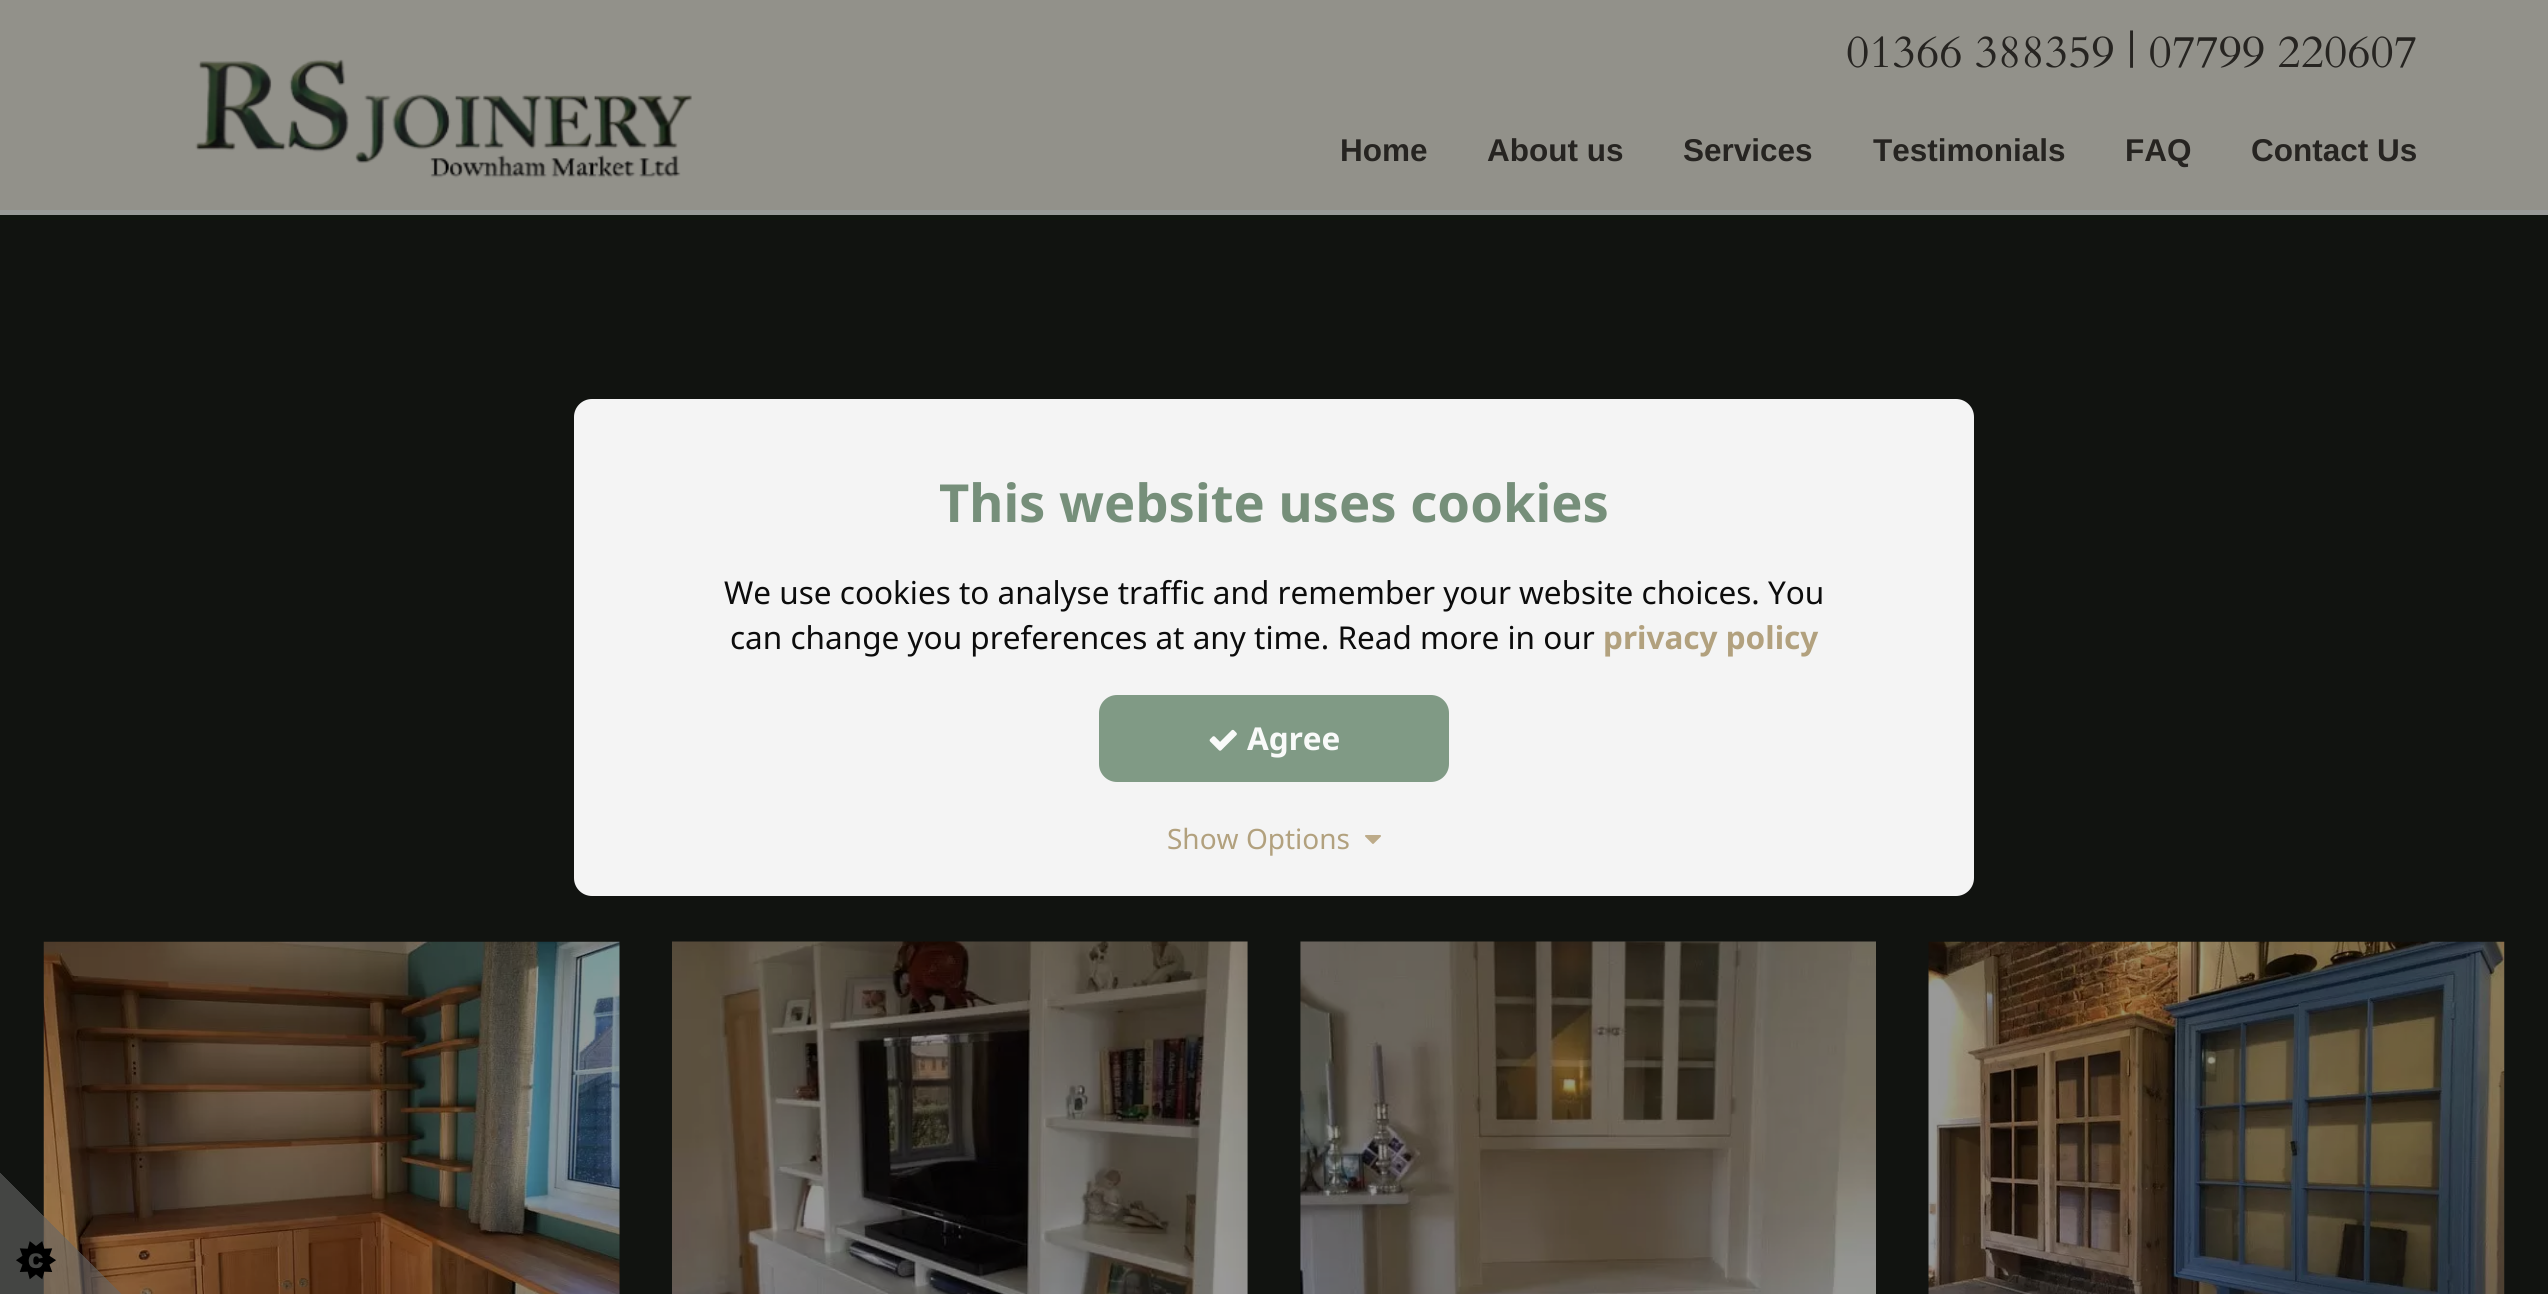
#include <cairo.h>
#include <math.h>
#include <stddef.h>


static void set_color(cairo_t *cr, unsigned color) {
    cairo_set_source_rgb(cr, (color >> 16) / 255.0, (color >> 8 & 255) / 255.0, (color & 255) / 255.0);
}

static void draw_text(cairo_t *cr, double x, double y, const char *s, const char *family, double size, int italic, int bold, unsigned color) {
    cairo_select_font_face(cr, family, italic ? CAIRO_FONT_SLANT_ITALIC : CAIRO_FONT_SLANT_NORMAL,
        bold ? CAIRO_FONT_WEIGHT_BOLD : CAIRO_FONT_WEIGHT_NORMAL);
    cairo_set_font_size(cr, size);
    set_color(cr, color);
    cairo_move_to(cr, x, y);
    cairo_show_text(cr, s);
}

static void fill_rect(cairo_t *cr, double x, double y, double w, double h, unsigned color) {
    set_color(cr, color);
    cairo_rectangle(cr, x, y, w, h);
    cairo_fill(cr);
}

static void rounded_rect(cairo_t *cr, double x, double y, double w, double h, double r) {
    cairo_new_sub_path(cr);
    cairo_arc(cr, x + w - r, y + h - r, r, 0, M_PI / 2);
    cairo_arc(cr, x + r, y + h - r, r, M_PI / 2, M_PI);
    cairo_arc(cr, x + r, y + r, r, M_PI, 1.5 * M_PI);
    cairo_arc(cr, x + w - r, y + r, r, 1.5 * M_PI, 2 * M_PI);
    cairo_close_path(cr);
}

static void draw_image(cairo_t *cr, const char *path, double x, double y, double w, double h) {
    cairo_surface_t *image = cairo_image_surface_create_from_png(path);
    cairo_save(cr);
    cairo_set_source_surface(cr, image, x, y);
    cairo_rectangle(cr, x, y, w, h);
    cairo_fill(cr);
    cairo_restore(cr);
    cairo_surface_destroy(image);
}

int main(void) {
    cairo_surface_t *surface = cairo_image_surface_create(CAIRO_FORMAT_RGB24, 2548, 1294);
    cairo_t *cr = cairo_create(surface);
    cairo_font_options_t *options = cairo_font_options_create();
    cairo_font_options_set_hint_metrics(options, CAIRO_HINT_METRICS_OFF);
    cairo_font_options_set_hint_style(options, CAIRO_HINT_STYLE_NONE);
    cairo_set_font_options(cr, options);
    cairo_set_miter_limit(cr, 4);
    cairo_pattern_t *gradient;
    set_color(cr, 0x999999);
    cairo_paint(cr);
    fill_rect(cr, 0, 0, 2548, 210, 0x92918A);
    draw_image(cr, "assets/img1.png", 195, 59, 497, 119);
    draw_text(cr, 1846, 67, "01366 388359 | 07799 220607", "Cardo", 45.5, 0, 0, 0x262421);
    draw_text(cr, 1340, 161, "Home", "Liberation Sans", 31.5, 0, 1, 0x262421);
    draw_text(cr, 1487, 161, "About us", "Liberation Sans", 31.5, 0, 1, 0x262421);
    draw_text(cr, 1683, 161, "Services", "Liberation Sans", 31.5, 0, 1, 0x262421);
    draw_text(cr, 1873, 161, "Testimonials", "Liberation Sans", 31.5, 0, 1, 0x262421);
    draw_text(cr, 2125, 161, "FAQ", "Liberation Sans", 31.5, 0, 1, 0x262421);
    draw_text(cr, 2251, 161, "Contact Us", "Liberation Sans", 31.5, 0, 1, 0x262421);
    fill_rect(cr, 0, 215, 2548, 1079, 0x111310);
    draw_image(cr, "assets/img2.png", 43, 941, 577, 353);
    draw_image(cr, "assets/img3.png", 672, 941, 576, 353);
    draw_image(cr, "assets/img4.png", 1300, 941, 576, 353);
    draw_image(cr, "assets/img5.png", 1928, 941, 577, 353);
    cairo_set_source_rgba(cr, 1, 1, 1, 0.95);
    rounded_rect(cr, 574, 399, 1400, 497, 18);
    cairo_fill(cr);
    draw_text(cr, 939, 522, "This website uses cookies", "Noto Sans", 52.5, 0, 1, 0x768F7A);
    draw_text(cr, 724, 604, "We use cookies to analyse traffic and remember your website choices. You", "Noto Sans", 31.5, 0, 0, 0x0C0C0C);
    draw_text(cr, 730, 649, "can change you preferences at any time. Read more in our", "Noto Sans", 31.5, 0, 0, 0x0C0C0C);
    draw_text(cr, 1603, 649, "privacy policy", "Noto Sans", 31.5, 0, 1, 0xB2A17E);
    cairo_set_source_rgba(cr, 0.482, 0.588, 0.502, 0.95);
    rounded_rect(cr, 1099, 695, 350, 87, 18);
    cairo_fill(cr);
    draw_image(cr, "assets/img6.png", 1209, 729, 28, 22);
    draw_text(cr, 1247, 750, "Agree", "Noto Sans", 31.5, 0, 1, 0xF9FAF9);
    draw_text(cr, 1167, 849, "Show Options", "Noto Sans", 28, 0, 0, 0xB2A17E);
    draw_image(cr, "assets/img7.png", 1365, 835, 16, 9);
    gradient = cairo_pattern_create_linear(123, 1173, 0, 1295);
    cairo_pattern_add_color_stop_rgba(gradient, 0.5, 0.4, 0.4, 0.4, 0);
    cairo_pattern_add_color_stop_rgba(gradient, 0.5, 0.4, 0.4, 0.4, 0.6);
    cairo_set_source(cr, gradient);
    cairo_pattern_destroy(gradient);
    cairo_rectangle(cr, 0, 1173, 121, 121);
    cairo_fill(cr);
    draw_image(cr, "assets/img8.png", 16, 1241, 40, 39);
    cairo_surface_write_to_png(surface, "output.png");
    cairo_font_options_destroy(options);
    cairo_destroy(cr);
    cairo_surface_destroy(surface);
    return 0;
}
